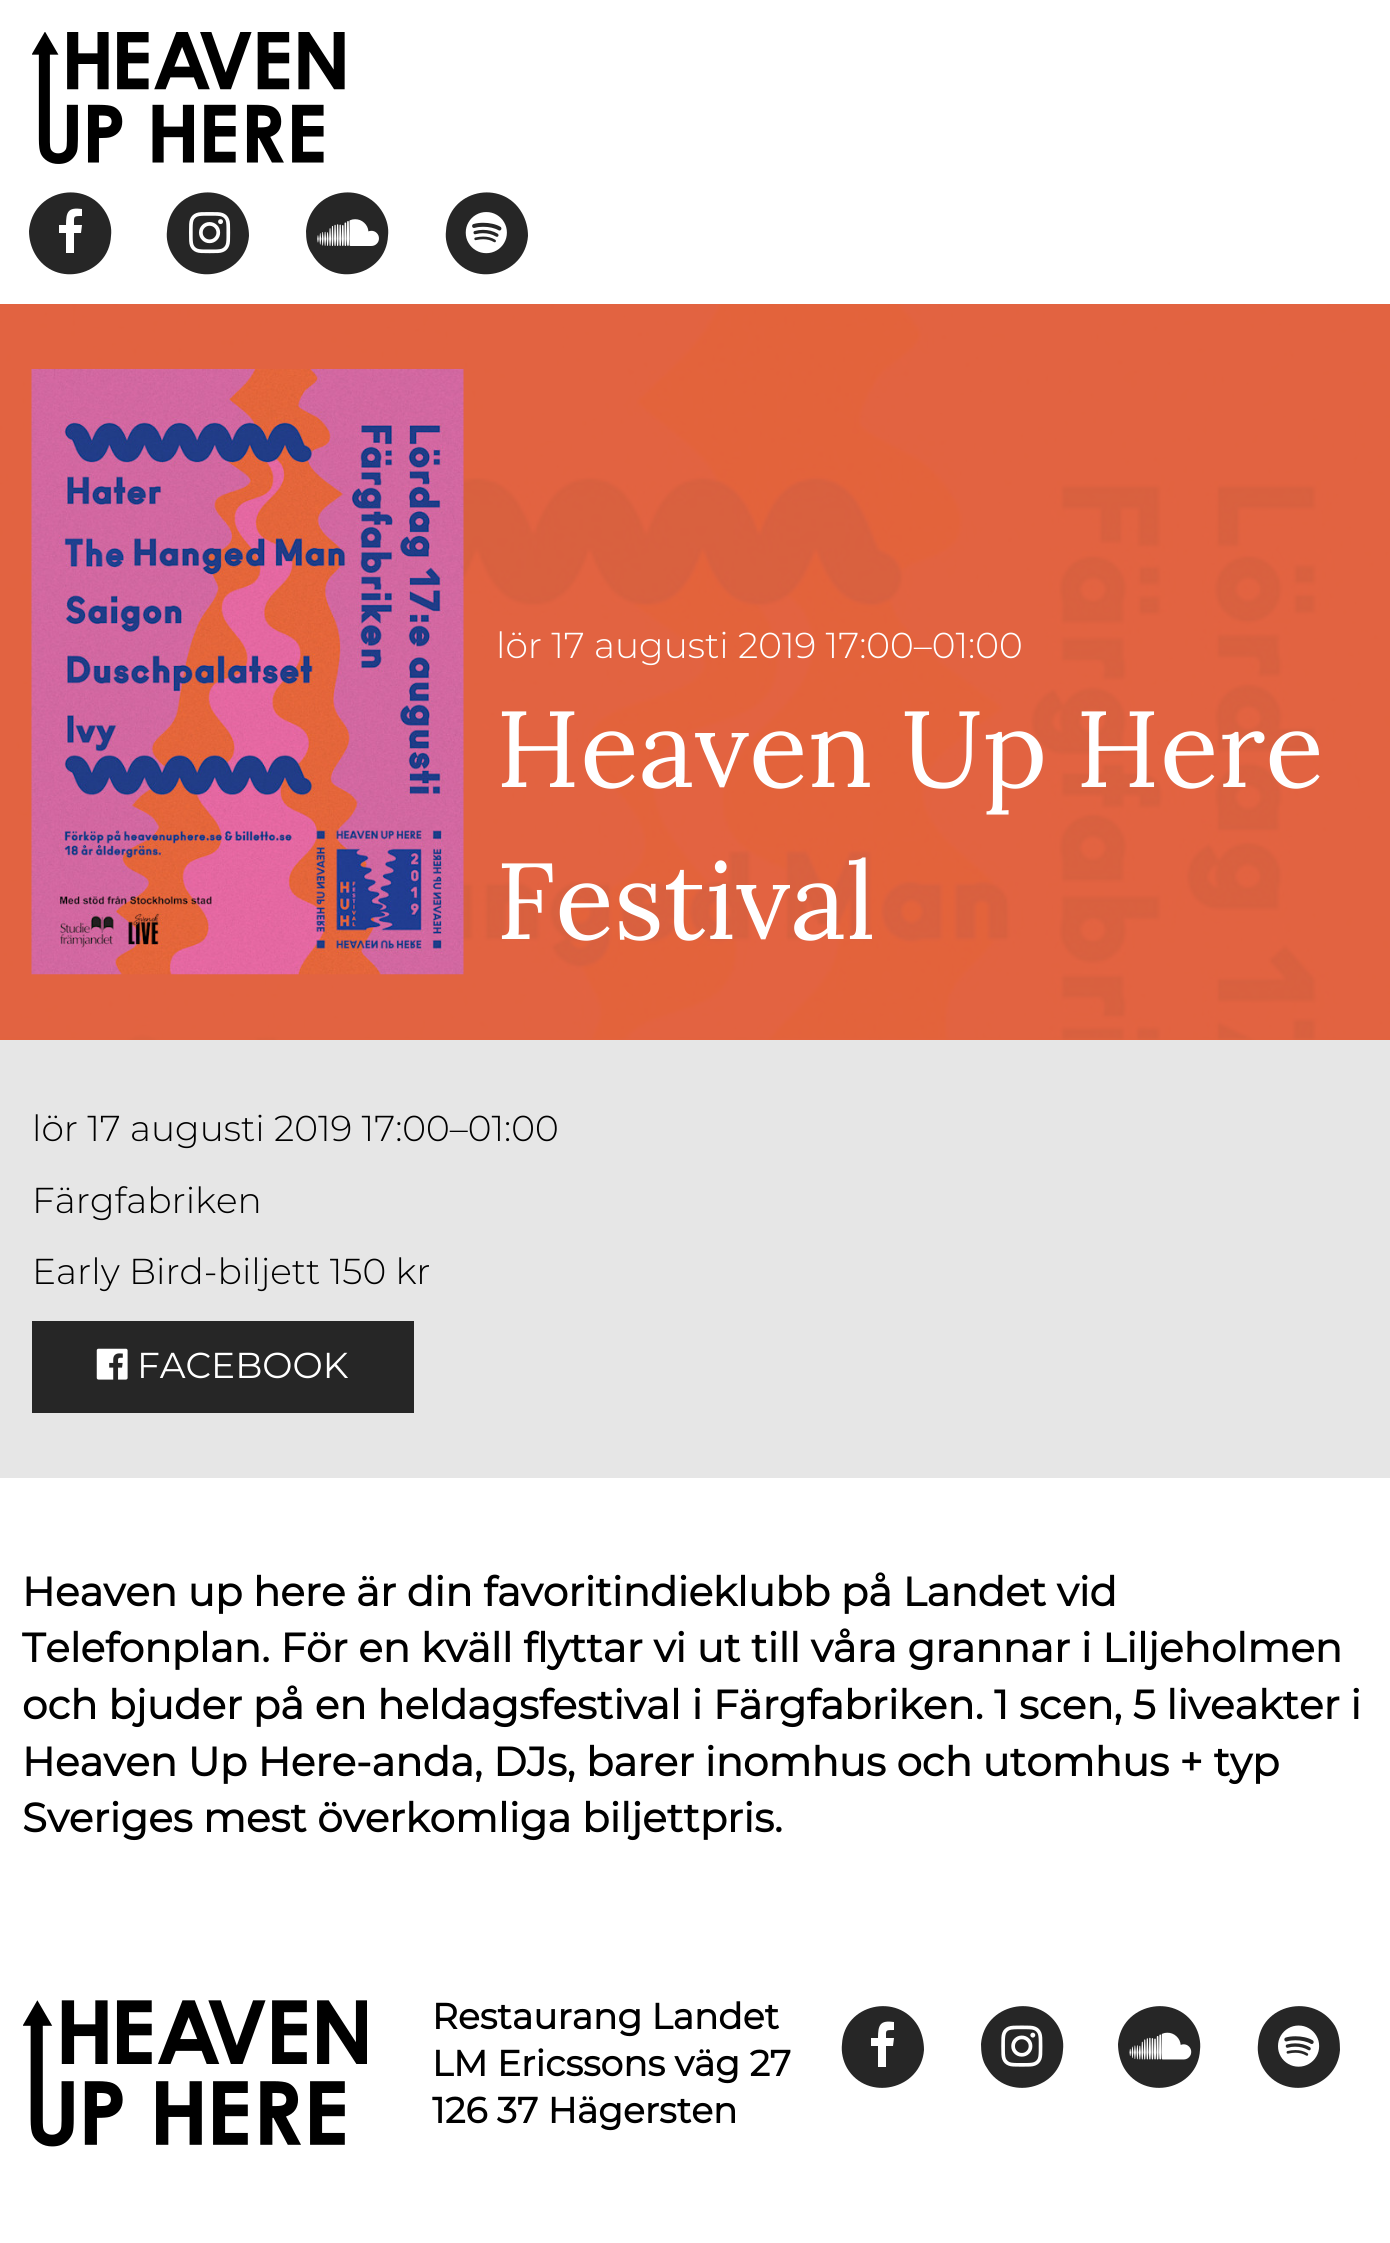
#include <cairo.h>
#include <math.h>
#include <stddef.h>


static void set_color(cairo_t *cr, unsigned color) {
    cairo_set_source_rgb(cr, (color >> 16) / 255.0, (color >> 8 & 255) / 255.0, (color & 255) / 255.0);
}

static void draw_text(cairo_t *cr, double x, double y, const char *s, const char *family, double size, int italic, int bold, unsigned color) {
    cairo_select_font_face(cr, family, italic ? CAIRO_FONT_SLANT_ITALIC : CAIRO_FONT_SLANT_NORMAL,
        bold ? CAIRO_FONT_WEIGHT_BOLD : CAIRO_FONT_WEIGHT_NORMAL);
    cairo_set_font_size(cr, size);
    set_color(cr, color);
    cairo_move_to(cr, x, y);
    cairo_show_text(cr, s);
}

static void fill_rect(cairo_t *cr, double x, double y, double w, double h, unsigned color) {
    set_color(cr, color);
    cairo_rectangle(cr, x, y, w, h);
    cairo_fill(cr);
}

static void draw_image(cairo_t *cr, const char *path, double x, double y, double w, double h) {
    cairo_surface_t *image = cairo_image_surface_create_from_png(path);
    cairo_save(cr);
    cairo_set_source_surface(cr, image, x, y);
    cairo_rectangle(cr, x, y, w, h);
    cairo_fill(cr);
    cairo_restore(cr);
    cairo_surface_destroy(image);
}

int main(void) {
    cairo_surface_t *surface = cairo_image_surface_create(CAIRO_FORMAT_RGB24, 1390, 2243);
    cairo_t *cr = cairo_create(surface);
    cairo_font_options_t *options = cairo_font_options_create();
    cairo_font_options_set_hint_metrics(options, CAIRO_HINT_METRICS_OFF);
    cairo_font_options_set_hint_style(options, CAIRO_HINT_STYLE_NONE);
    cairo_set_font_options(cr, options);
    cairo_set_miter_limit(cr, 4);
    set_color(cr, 0xFFFFFF);
    cairo_paint(cr);
    draw_image(cr, "assets/img1.png", 32, 32, 313, 132);
    set_color(cr, 0x262626);
    cairo_new_path(cr);
    cairo_move_to(cr, 106, 213);
    cairo_curve_to(cr, 110, 220, 112, 228, 111, 236);
    cairo_curve_to(cr, 109, 276, 55, 289, 35, 254);
    cairo_curve_to(cr, 31, 247, 29, 239, 29, 231);
    cairo_curve_to(cr, 32, 190, 86, 178, 106, 213);
    cairo_close_path(cr);
    cairo_fill(cr);
    set_color(cr, 0xFFFFFF);
    cairo_new_path(cr);
    cairo_move_to(cr, 82, 209);
    cairo_line_to(cr, 82, 216);
    cairo_curve_to(cr, 73, 216, 74, 216, 74, 225);
    cairo_line_to(cr, 82, 225);
    cairo_line_to(cr, 81, 233);
    cairo_line_to(cr, 74, 233);
    cairo_line_to(cr, 74, 253);
    cairo_line_to(cr, 66, 253);
    cairo_line_to(cr, 66, 233);
    cairo_line_to(cr, 59, 233);
    cairo_line_to(cr, 59, 225);
    cairo_line_to(cr, 66, 225);
    cairo_curve_to(cr, 66, 212, 68, 207, 82, 209);
    cairo_close_path(cr);
    cairo_fill(cr);
    set_color(cr, 0x262626);
    cairo_new_path(cr);
    cairo_move_to(cr, 243, 213);
    cairo_curve_to(cr, 247, 220, 249, 228, 249, 236);
    cairo_curve_to(cr, 246, 276, 192, 289, 172, 254);
    cairo_curve_to(cr, 168, 247, 166, 239, 167, 231);
    cairo_curve_to(cr, 169, 190, 223, 178, 243, 213);
    cairo_close_path(cr);
    cairo_fill(cr);
    draw_image(cr, "assets/img2.png", 189, 212, 42, 42);
    cairo_new_path(cr);
    cairo_move_to(cr, 383, 213);
    cairo_curve_to(cr, 387, 220, 389, 228, 388, 236);
    cairo_curve_to(cr, 386, 276, 332, 289, 312, 254);
    cairo_curve_to(cr, 307, 247, 306, 239, 306, 231);
    cairo_curve_to(cr, 309, 190, 363, 178, 383, 213);
    cairo_close_path(cr);
    cairo_fill(cr);
    draw_image(cr, "assets/img3.png", 317, 219, 62, 27);
    cairo_new_path(cr);
    cairo_move_to(cr, 522, 213);
    cairo_curve_to(cr, 526, 220, 528, 228, 528, 236);
    cairo_curve_to(cr, 525, 276, 471, 289, 451, 254);
    cairo_curve_to(cr, 447, 247, 445, 239, 446, 231);
    cairo_curve_to(cr, 448, 190, 502, 178, 522, 213);
    cairo_close_path(cr);
    cairo_fill(cr);
    draw_image(cr, "assets/img4.png", 465, 212, 42, 42);
    fill_rect(cr, 0, 304, 1390, 736, 0xE3633C);
    draw_image(cr, "assets/img5.png", 0, 304, 1390, 736);
    draw_image(cr, "assets/img6.png", 31, 369, 433, 606);
    draw_text(cr, 496, 658, "lör 17 augusti 2019 17:00–01:00", "Montserrat Light", 36, 0, 0, 0xFFFFFF);
    draw_text(cr, 496, 787, "Heaven Up Here", "Lora", 108, 0, 0, 0xFFFFFF);
    draw_text(cr, 496, 939, "Festival", "Lora", 108, 0, 0, 0xFFFFFF);
    fill_rect(cr, 0, 1040, 1390, 438, 0xE6E6E6);
    draw_text(cr, 32, 1141, "lör 17 augusti 2019 17:00–01:00", "Montserrat Light", 36, 0, 0, 0x000000);
    draw_text(cr, 32, 1213, "Färgfabriken", "Montserrat Light", 36, 0, 0, 0x000000);
    draw_text(cr, 32, 1284, "Early Bird-biljett 150 kr", "Montserrat Light", 36, 0, 0, 0x000000);
    fill_rect(cr, 32, 1321, 382, 92, 0x262626);
    draw_image(cr, "assets/img7.png", 96, 1348, 32, 32);
    draw_text(cr, 137, 1378, "FACEBOOK", "Montserrat", 36, 0, 0, 0xFFFFFF);
    draw_text(cr, 22, 1606, "Heaven up here är din favoritindieklubb på Landet vid", "Montserrat", 40.5, 0, 1, 0x000000);
    draw_text(cr, 22, 1662, "Telefonplan. För en kväll flyttar vi ut till våra grannar i Liljeholmen", "Montserrat", 40.5, 0, 1, 0x000000);
    draw_text(cr, 22, 1719, "och bjuder på en heldagsfestival i Färgfabriken. 1 scen, 5 liveakter i", "Montserrat", 40.5, 0, 1, 0x000000);
    draw_text(cr, 22, 1776, "Heaven Up Here-anda, DJs, barer inomhus och utomhus + typ", "Montserrat", 40.5, 0, 1, 0x000000);
    draw_text(cr, 22, 1832, "Sveriges mest överkomliga biljettpris.", "Montserrat", 40.5, 0, 1, 0x000000);
    draw_image(cr, "assets/img8.png", 23, 2000, 344, 147);
    draw_text(cr, 432, 2029, "Restaurang Landet", "Montserrat", 36, 0, 1, 0x000000);
    draw_text(cr, 432, 2076, "LM Ericssons väg 27", "Montserrat", 36, 0, 1, 0x000000);
    draw_text(cr, 432, 2123, "126 37 Hägersten", "Montserrat", 36, 0, 1, 0x000000);
    set_color(cr, 0x262626);
    cairo_new_path(cr);
    cairo_move_to(cr, 918, 2026);
    cairo_curve_to(cr, 922, 2033, 924, 2042, 924, 2050);
    cairo_curve_to(cr, 921, 2090, 867, 2102, 847, 2068);
    cairo_curve_to(cr, 843, 2061, 841, 2052, 842, 2044);
    cairo_curve_to(cr, 844, 2004, 898, 1992, 918, 2026);
    cairo_close_path(cr);
    cairo_fill(cr);
    set_color(cr, 0xFFFFFF);
    cairo_new_path(cr);
    cairo_move_to(cr, 894, 2022);
    cairo_line_to(cr, 894, 2030);
    cairo_curve_to(cr, 885, 2030, 886, 2030, 886, 2038);
    cairo_line_to(cr, 894, 2038);
    cairo_line_to(cr, 893, 2046);
    cairo_line_to(cr, 886, 2046);
    cairo_line_to(cr, 886, 2067);
    cairo_line_to(cr, 878, 2067);
    cairo_line_to(cr, 878, 2046);
    cairo_line_to(cr, 871, 2046);
    cairo_line_to(cr, 871, 2038);
    cairo_line_to(cr, 878, 2038);
    cairo_curve_to(cr, 878, 2025, 880, 2020, 894, 2022);
    cairo_close_path(cr);
    cairo_fill(cr);
    set_color(cr, 0x262626);
    cairo_new_path(cr);
    cairo_move_to(cr, 1058, 2026);
    cairo_curve_to(cr, 1062, 2033, 1064, 2042, 1063, 2050);
    cairo_curve_to(cr, 1061, 2090, 1007, 2102, 987, 2068);
    cairo_curve_to(cr, 982, 2061, 981, 2052, 981, 2044);
    cairo_curve_to(cr, 984, 2004, 1038, 1992, 1058, 2026);
    cairo_close_path(cr);
    cairo_fill(cr);
    draw_image(cr, "assets/img9.png", 1001, 2025, 42, 42);
    cairo_new_path(cr);
    cairo_move_to(cr, 1195, 2026);
    cairo_curve_to(cr, 1199, 2033, 1201, 2042, 1200, 2050);
    cairo_curve_to(cr, 1198, 2090, 1144, 2102, 1124, 2068);
    cairo_curve_to(cr, 1120, 2061, 1118, 2052, 1118, 2044);
    cairo_curve_to(cr, 1121, 2004, 1175, 1992, 1195, 2026);
    cairo_close_path(cr);
    cairo_fill(cr);
    draw_image(cr, "assets/img10.png", 1129, 2032, 63, 28);
    cairo_new_path(cr);
    cairo_move_to(cr, 1335, 2026);
    cairo_curve_to(cr, 1339, 2033, 1340, 2042, 1340, 2050);
    cairo_curve_to(cr, 1337, 2090, 1283, 2102, 1263, 2068);
    cairo_curve_to(cr, 1259, 2061, 1257, 2052, 1258, 2044);
    cairo_curve_to(cr, 1260, 2004, 1314, 1992, 1335, 2026);
    cairo_close_path(cr);
    cairo_fill(cr);
    draw_image(cr, "assets/img11.png", 1278, 2025, 42, 42);
    cairo_surface_write_to_png(surface, "output.png");
    cairo_font_options_destroy(options);
    cairo_destroy(cr);
    cairo_surface_destroy(surface);
    return 0;
}
